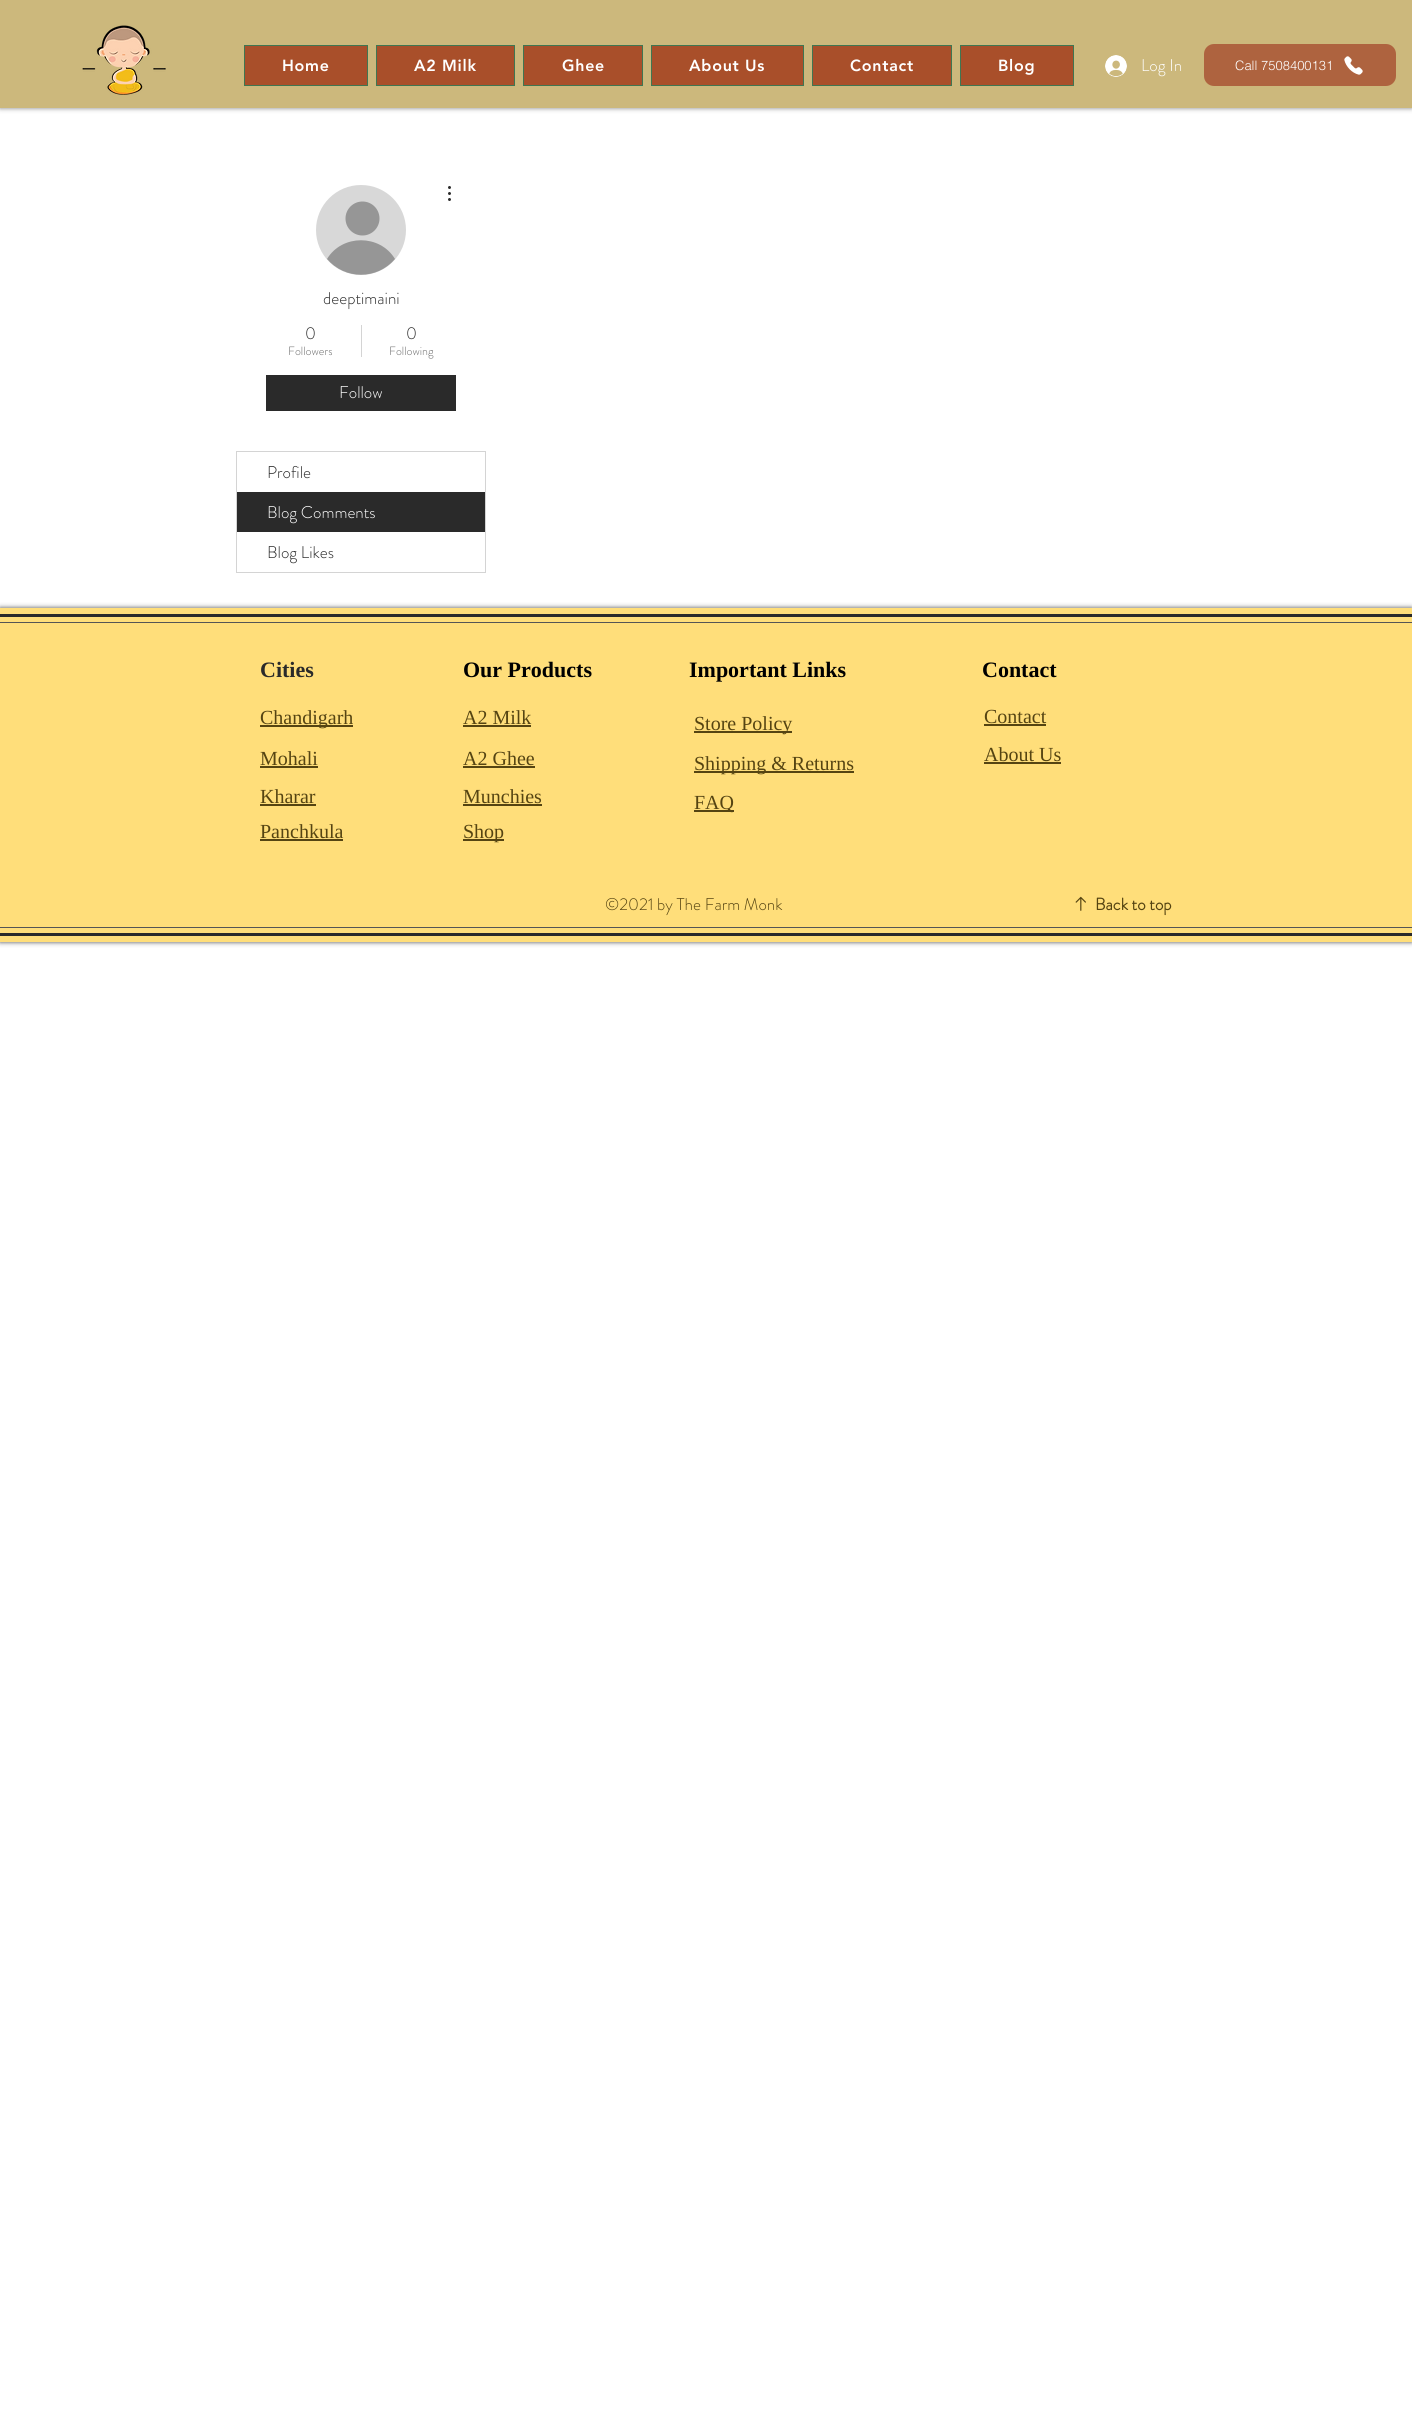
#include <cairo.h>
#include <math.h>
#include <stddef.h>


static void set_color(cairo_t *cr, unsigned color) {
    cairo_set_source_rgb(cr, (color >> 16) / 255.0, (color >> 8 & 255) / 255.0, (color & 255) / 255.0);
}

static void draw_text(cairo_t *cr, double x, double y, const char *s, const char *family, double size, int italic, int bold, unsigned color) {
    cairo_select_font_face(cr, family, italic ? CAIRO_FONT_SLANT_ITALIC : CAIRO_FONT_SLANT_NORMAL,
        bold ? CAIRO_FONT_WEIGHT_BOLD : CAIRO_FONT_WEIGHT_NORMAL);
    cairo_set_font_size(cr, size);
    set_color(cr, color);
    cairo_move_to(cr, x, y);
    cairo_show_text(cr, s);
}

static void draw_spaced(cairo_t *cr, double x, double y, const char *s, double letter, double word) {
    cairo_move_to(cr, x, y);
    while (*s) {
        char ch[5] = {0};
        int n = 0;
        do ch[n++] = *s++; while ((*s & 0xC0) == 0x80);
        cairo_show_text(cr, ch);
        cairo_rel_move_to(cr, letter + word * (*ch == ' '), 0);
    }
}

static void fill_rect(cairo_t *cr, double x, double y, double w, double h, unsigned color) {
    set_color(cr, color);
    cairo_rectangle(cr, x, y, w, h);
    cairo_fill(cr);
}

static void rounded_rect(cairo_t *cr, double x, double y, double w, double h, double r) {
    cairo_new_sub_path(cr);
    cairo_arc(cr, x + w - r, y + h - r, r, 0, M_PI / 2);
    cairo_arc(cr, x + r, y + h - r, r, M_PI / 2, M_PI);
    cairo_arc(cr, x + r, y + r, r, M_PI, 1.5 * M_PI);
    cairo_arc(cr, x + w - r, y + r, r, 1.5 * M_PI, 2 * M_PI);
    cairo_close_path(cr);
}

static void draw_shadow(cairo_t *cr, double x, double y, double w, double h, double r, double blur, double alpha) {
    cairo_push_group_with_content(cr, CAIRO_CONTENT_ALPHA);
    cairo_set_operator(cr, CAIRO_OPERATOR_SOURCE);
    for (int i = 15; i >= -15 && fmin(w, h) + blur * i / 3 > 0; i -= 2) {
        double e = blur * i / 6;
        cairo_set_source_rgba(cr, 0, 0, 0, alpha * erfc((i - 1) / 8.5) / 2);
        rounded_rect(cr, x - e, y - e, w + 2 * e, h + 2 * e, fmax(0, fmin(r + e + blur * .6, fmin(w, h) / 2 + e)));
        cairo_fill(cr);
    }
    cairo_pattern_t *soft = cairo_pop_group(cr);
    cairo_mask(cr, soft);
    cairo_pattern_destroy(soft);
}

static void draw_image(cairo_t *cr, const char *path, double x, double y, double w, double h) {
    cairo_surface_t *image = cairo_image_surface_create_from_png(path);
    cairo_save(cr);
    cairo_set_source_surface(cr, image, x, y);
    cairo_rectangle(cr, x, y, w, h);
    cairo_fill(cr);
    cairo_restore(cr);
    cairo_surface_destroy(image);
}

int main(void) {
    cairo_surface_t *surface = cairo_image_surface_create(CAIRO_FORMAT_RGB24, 1412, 2427);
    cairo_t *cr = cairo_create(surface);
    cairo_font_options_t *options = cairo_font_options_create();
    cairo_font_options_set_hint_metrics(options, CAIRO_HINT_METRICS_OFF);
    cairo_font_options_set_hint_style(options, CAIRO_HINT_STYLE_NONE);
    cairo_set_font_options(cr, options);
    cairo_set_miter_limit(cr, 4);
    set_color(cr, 0xFFFFFF);
    cairo_paint(cr);
    set_color(cr, 0x000000);
    draw_shadow(cr, 0, 0, 1412, 108, 0, 2.5, 0.5);
    fill_rect(cr, 0, 0, 1412, 108, 0xCCB87C);
    draw_image(cr, "assets/img1.png", 82, 25, 84, 70);
    set_color(cr, 0xA94F2A);
    cairo_rectangle(cr, 244.5, 45.5, 123, 40);
    cairo_fill_preserve(cr);
    set_color(cr, 0x3F7652);
    cairo_set_line_width(cr, 1);
    cairo_stroke(cr);
    cairo_select_font_face(cr, "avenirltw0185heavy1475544 Black", CAIRO_FONT_SLANT_NORMAL, CAIRO_FONT_WEIGHT_NORMAL);
    cairo_set_font_size(cr, 16);
    set_color(cr, 0xFFFFFF);
    draw_spaced(cr, 282, 71, "Home", 0.75, 0);
    set_color(cr, 0xA94F2A);
    cairo_rectangle(cr, 376.5, 45.5, 138, 40);
    cairo_fill_preserve(cr);
    set_color(cr, 0x3F7652);
    cairo_stroke(cr);
    set_color(cr, 0xFFFFFF);
    draw_spaced(cr, 414, 71, "A2 Milk", 0.75, 0);
    set_color(cr, 0xA94F2A);
    cairo_rectangle(cr, 523.5, 45.5, 119, 40);
    cairo_fill_preserve(cr);
    set_color(cr, 0x3F7652);
    cairo_stroke(cr);
    set_color(cr, 0xFFFFFF);
    draw_spaced(cr, 562, 71, "Ghee", 0.75, 0);
    set_color(cr, 0xA94F2A);
    cairo_rectangle(cr, 651.5, 45.5, 152, 40);
    cairo_fill_preserve(cr);
    set_color(cr, 0x3F7652);
    cairo_stroke(cr);
    set_color(cr, 0xFFFFFF);
    draw_spaced(cr, 689, 71, "About Us", 0.75, 0);
    set_color(cr, 0xA94F2A);
    cairo_rectangle(cr, 812.5, 45.5, 139, 40);
    cairo_fill_preserve(cr);
    set_color(cr, 0x3F7652);
    cairo_stroke(cr);
    set_color(cr, 0xFFFFFF);
    draw_spaced(cr, 850, 71, "Contact", 0.75, 0);
    set_color(cr, 0xA94F2A);
    cairo_rectangle(cr, 960.5, 45.5, 113, 40);
    cairo_fill_preserve(cr);
    set_color(cr, 0x3F7652);
    cairo_stroke(cr);
    set_color(cr, 0xFFFFFF);
    draw_spaced(cr, 998, 71, "Blog", 0.75, 0);
    draw_image(cr, "assets/img2.png", 1105, 55, 22, 22);
    draw_text(cr, 1141, 71, "Log In", "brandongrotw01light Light", 17, 0, 0, 0xFFFFFF);
    set_color(cr, 0xAE633F);
    rounded_rect(cr, 1204, 44, 192, 42, 10);
    cairo_fill(cr);
    draw_text(cr, 1235, 70, "Call 7508400131", "helvetica Light", 13, 0, 0, 0xFFFFFF);
    draw_image(cr, "assets/img3.png", 1344, 56, 19, 19);
    set_color(cr, 0xD8D8D8);
    cairo_arc(cr, 361, 230, 45, 0, 2 * M_PI);
    cairo_fill(cr);
    set_color(cr, 0x969696);
    cairo_arc(cr, 362.5, 218.5, 17, 0, 2 * M_PI);
    cairo_fill(cr);
    cairo_new_path(cr);
    cairo_move_to(cr, 395, 259);
    cairo_curve_to(cr, 377, 280, 345, 280, 327, 259);
    cairo_curve_to(cr, 342, 234, 380, 234, 395, 259);
    cairo_close_path(cr);
    cairo_fill(cr);
    draw_image(cr, "assets/img4.png", 448, 186, 3, 15);
    draw_text(cr, 323, 304, "deeptimaini", "brandongrotw01light Light", 17, 0, 0, 0x2A2A2A);
    draw_text(cr, 305, 339, "0", "brandongrotw01light Light", 17, 0, 0, 0x2A2A2A);
    draw_text(cr, 288, 355, "Followers", "brandongrotw01light Light", 12, 0, 0, 0x6A6A6A);
    fill_rect(cr, 361, 325, 1, 32, 0xD4D4D4);
    draw_text(cr, 406, 339, "0", "brandongrotw01light Light", 17, 0, 0, 0x2A2A2A);
    draw_text(cr, 389, 355, "Following", "brandongrotw01light Light", 12, 0, 0, 0x6A6A6A);
    fill_rect(cr, 266, 375, 190, 36, 0x2A2A2A);
    draw_text(cr, 339, 398, "Follow", "brandongrotw01light Light", 17, 0, 0, 0xFFFFFF);
    cairo_rectangle(cr, 236.5, 451.5, 249, 121);
    set_color(cr, 0xD4D4D4);
    cairo_stroke(cr);
    draw_text(cr, 267, 478, "Profile", "brandongrotw01light Light", 17, 0, 0, 0x2A2A2A);
    fill_rect(cr, 237, 492, 248, 40, 0x2A2A2A);
    draw_text(cr, 267, 518, "Blog Comments", "brandongrotw01light Light", 17, 0, 0, 0xFFFFFF);
    draw_text(cr, 267, 558, "Blog Likes", "brandongrotw01light Light", 17, 0, 0, 0x2A2A2A);
    set_color(cr, 0x000000);
    draw_shadow(cr, 0, 608, 1412, 334, 0, 2.5, 0.7);
    fill_rect(cr, 0, 608, 1412, 334, 0xFFDE7A);
    fill_rect(cr, 0, 614, 1412, 3, 0x2A2A2A);
    fill_rect(cr, 0, 933, 1412, 3, 0x2A2A2A);
    fill_rect(cr, 0, 622, 1412, 1, 0x555555);
    fill_rect(cr, 0, 927, 1412, 1, 0x555555);
    draw_text(cr, 260, 677, "Cities", "Liberation Serif", 22, 0, 1, 0x2A2A2A);
    draw_text(cr, 463, 677, "Our Products", "Liberation Serif", 22, 0, 1, 0x000000);
    draw_text(cr, 689, 677, "Important Links", "Liberation Serif", 22, 0, 1, 0x000000);
    draw_text(cr, 982, 677, "Contact", "Liberation Serif", 22, 0, 1, 0x000000);
    draw_text(cr, 984, 723, "Contact", "Liberation Serif", 20, 0, 0, 0x554412);
    fill_rect(cr, 984, 724, 62, 2, 0x554412);
    draw_text(cr, 984, 761, "About Us", "Liberation Serif", 20, 0, 0, 0x554412);
    fill_rect(cr, 984, 762, 77, 2, 0x554412);
    fill_rect(cr, 260, 725, 93, 2, 0x554412);
    draw_text(cr, 260, 724, "Chandigarh", "Liberation Serif", 20, 0, 0, 0x554412);
    draw_text(cr, 463, 724, "A2 Milk", "Liberation Serif", 20, 0, 0, 0x554412);
    fill_rect(cr, 463, 725, 68, 2, 0x554412);
    fill_rect(cr, 694, 731, 98, 2, 0x554412);
    draw_text(cr, 694, 730, "Store Policy", "Liberation Serif", 20, 0, 0, 0x554412);
    draw_text(cr, 260, 765, "Mohali", "Liberation Serif", 20, 0, 0, 0x554412);
    fill_rect(cr, 260, 766, 58, 2, 0x554412);
    draw_text(cr, 463, 765, "A2 Ghee", "Liberation Serif", 20, 0, 0, 0x554412);
    fill_rect(cr, 463, 766, 72, 2, 0x554412);
    fill_rect(cr, 694, 771, 160, 2, 0x554412);
    draw_text(cr, 694, 770, "Shipping & Returns", "Liberation Serif", 20, 0, 0, 0x554412);
    draw_text(cr, 260, 803, "Kharar", "Liberation Serif", 20, 0, 0, 0x554412);
    fill_rect(cr, 260, 804, 56, 2, 0x554412);
    draw_text(cr, 463, 803, "Munchies", "Liberation Serif", 20, 0, 0, 0x554412);
    fill_rect(cr, 463, 804, 79, 2, 0x554412);
    fill_rect(cr, 694, 810, 40, 2, 0x554412);
    draw_text(cr, 694, 809, "FAQ", "Liberation Serif", 20, 0, 0, 0x554412);
    draw_text(cr, 260, 838, "Panchkula", "Liberation Serif", 20, 0, 0, 0x554412);
    fill_rect(cr, 260, 839, 83, 2, 0x554412);
    fill_rect(cr, 463, 839, 41, 2, 0x554412);
    draw_text(cr, 463, 838, "Shop", "Liberation Serif", 20, 0, 0, 0x554412);
    draw_text(cr, 605, 910, "©2021 by The Farm Monk", "brandongrotw01light Light", 17, 0, 0, 0x554412);
    draw_image(cr, "assets/img5.png", 1075, 896, 11, 15);
    draw_text(cr, 1095, 910, "Back to top", "brandongrotw01light", 17, 0, 1, 0x554412);
    cairo_surface_write_to_png(surface, "output.png");
    cairo_font_options_destroy(options);
    cairo_destroy(cr);
    cairo_surface_destroy(surface);
    return 0;
}
